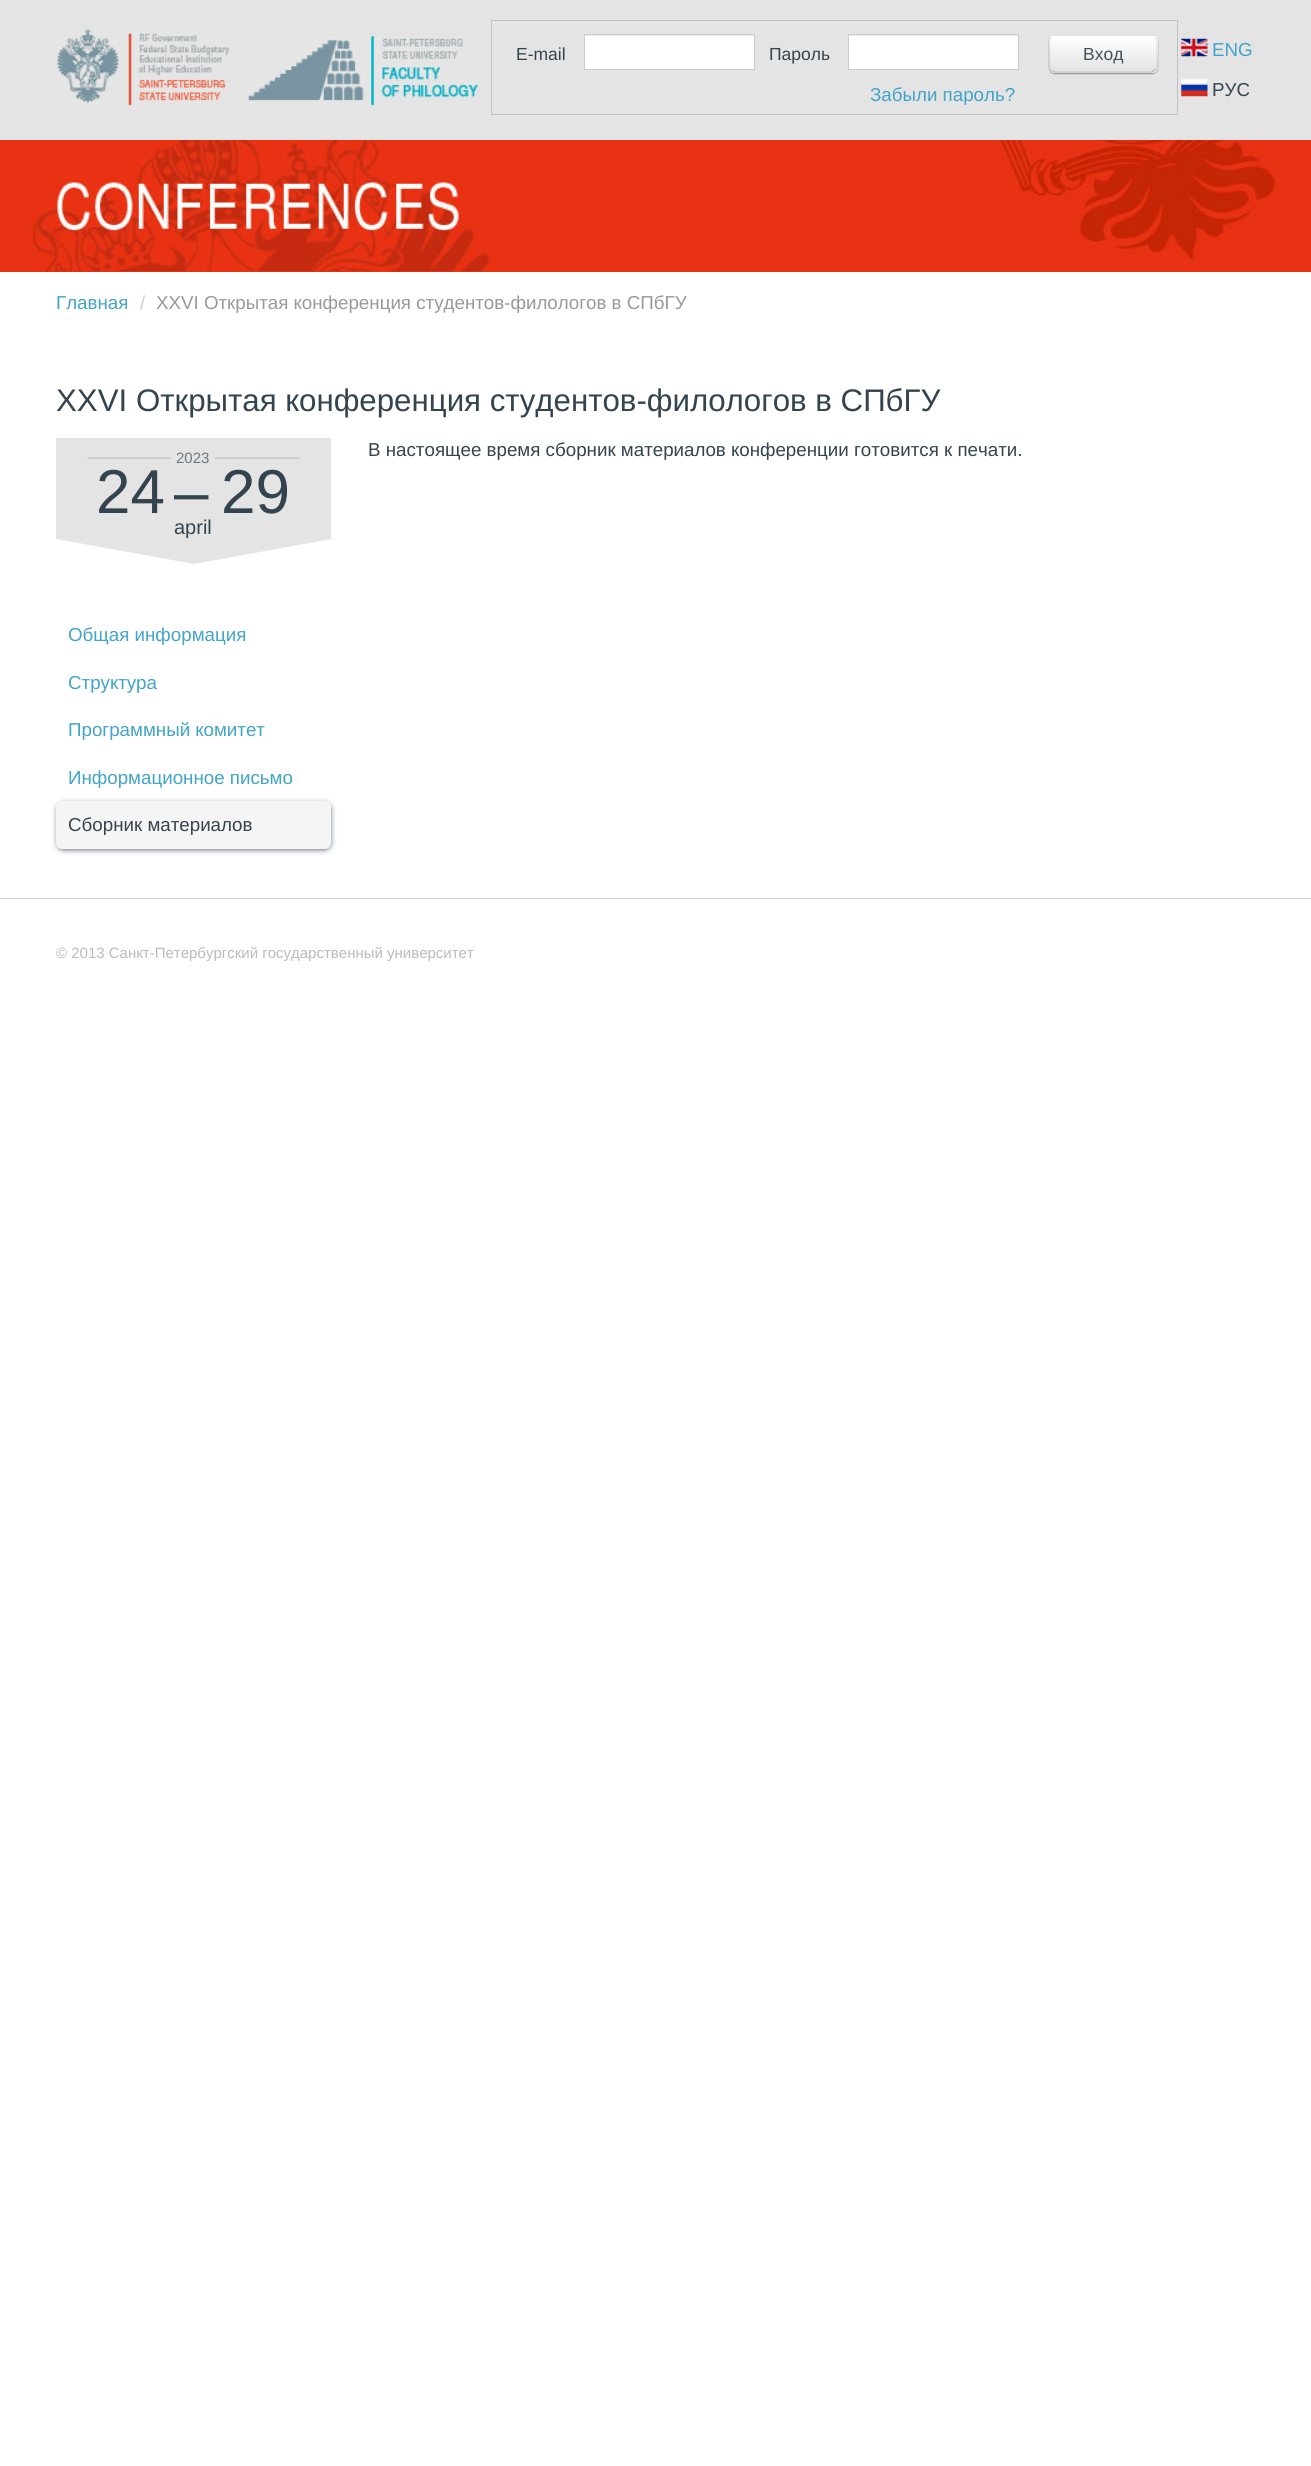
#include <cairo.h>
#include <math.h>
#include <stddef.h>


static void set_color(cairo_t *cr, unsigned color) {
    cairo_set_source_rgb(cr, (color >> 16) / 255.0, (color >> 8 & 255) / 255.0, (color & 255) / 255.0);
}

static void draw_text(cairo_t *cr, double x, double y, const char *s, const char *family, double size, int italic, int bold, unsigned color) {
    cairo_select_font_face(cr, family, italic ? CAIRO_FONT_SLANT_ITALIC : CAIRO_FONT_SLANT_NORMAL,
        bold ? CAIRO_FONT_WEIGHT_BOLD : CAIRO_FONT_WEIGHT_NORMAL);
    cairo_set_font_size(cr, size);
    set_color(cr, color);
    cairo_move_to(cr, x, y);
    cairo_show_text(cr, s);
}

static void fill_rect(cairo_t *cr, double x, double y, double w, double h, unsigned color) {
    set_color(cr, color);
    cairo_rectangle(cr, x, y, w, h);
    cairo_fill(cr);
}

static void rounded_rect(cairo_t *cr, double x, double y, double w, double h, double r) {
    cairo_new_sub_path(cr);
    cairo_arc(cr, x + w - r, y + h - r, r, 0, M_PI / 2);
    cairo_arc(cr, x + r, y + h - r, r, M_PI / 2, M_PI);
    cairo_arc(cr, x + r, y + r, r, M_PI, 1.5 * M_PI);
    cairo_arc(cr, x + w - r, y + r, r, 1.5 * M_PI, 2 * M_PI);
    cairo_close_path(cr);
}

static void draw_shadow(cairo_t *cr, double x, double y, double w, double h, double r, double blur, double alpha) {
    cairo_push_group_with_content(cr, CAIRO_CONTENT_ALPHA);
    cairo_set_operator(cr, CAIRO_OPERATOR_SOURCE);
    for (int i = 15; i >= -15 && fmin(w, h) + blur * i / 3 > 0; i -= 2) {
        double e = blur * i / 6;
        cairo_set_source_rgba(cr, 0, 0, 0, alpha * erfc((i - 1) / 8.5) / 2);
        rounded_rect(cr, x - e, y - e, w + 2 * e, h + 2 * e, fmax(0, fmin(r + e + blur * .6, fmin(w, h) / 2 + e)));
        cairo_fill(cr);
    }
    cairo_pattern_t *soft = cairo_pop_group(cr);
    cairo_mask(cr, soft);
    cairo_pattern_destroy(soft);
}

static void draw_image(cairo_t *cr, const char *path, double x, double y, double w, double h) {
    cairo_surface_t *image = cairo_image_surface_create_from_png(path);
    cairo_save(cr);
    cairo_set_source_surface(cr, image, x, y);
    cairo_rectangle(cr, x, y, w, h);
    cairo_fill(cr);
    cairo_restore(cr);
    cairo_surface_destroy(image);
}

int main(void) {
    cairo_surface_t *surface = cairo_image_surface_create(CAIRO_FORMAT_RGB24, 1311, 2466);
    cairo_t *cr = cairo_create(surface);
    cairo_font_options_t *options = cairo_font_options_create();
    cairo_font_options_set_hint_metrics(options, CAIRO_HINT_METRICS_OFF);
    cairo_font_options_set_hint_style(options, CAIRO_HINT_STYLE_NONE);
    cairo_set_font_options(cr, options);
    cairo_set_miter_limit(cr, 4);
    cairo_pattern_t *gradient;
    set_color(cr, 0xFFFFFF);
    cairo_paint(cr);
    fill_rect(cr, 0, 0, 1311, 140, 0xE4E4E4);
    draw_image(cr, "assets/img1.png", 57, 28, 172, 78);
    draw_image(cr, "assets/img2.png", 248, 36, 230, 70);
    cairo_rectangle(cr, 491.5, 20.5, 686, 94);
    set_color(cr, 0xBCC4C8);
    cairo_set_line_width(cr, 1);
    cairo_stroke(cr);
    draw_text(cr, 516, 60, "E-mail", "Liberation Sans", 17.5, 0, 0, 0x34444E);
    fill_rect(cr, 585, 36, 169, 33, 0xFFFFFF);
    fill_rect(cr, 585, 35, 169, 1, 0xECECEC);
    cairo_rectangle(cr, 584.5, 34.5, 170, 35);
    set_color(cr, 0xCCCCCC);
    cairo_stroke(cr);
    draw_text(cr, 769, 60, "Пароль", "Liberation Sans", 17.5, 0, 0, 0x34444E);
    fill_rect(cr, 849, 36, 169, 33, 0xFFFFFF);
    fill_rect(cr, 849, 35, 169, 1, 0xECECEC);
    cairo_rectangle(cr, 848.5, 34.5, 170, 35);
    set_color(cr, 0xCCCCCC);
    cairo_stroke(cr);
    set_color(cr, 0x80949F);
    draw_shadow(cr, 1049, 36, 109, 38, 6, 0.5, 1);
    set_color(cr, 0xE4E4E4);
    rounded_rect(cr, 1049, 35, 109, 38, 6);
    cairo_fill(cr);
    cairo_save(cr);
    rounded_rect(cr, 1049, 35, 109, 38, 6);
    cairo_clip(cr);
    gradient = cairo_pattern_create_linear(1103, 71, 1103, 36);
    cairo_pattern_add_color_stop_rgba(gradient, 0, 0.894, 0.894, 0.894, 1);
    cairo_pattern_add_color_stop_rgba(gradient, 1, 1, 1, 1, 1);
    cairo_set_source(cr, gradient);
    cairo_pattern_destroy(gradient);
    cairo_rectangle(cr, 1049, 36, 109, 35);
    cairo_fill(cr);
    gradient = cairo_pattern_create_linear(1103, 106, 1103, 71);
    cairo_pattern_add_color_stop_rgba(gradient, 0, 0.894, 0.894, 0.894, 1);
    cairo_pattern_add_color_stop_rgba(gradient, 1, 1, 1, 1, 1);
    cairo_set_source(cr, gradient);
    cairo_pattern_destroy(gradient);
    cairo_rectangle(cr, 1049, 71, 109, 2);
    cairo_fill(cr);
    cairo_restore(cr);
    cairo_new_path(cr);
    cairo_move_to(cr, 1155, 37.5);
    cairo_curve_to(cr, 1156.5, 38.5, 1157, 40, 1157, 41);
    cairo_line_to(cr, 1157, 66);
    cairo_curve_to(cr, 1157, 67.5, 1156.5, 69, 1155, 70);
    cairo_set_source_rgba(cr, 0, 0, 0, 0.1);
    cairo_set_line_width(cr, 1.2);
    cairo_stroke(cr);
    cairo_new_path(cr);
    cairo_move_to(cr, 1155, 70);
    cairo_line_to(cr, 1152, 72);
    cairo_line_to(cr, 1054.5, 72);
    cairo_line_to(cr, 1051, 70);
    set_color(cr, 0xB3B3B3);
    cairo_stroke(cr);
    cairo_new_path(cr);
    cairo_move_to(cr, 1051, 70);
    cairo_curve_to(cr, 1050, 69, 1049.5, 67.5, 1049.5, 66);
    cairo_line_to(cr, 1049.5, 41);
    cairo_curve_to(cr, 1049.5, 40, 1050, 38.5, 1051, 37.5);
    cairo_set_source_rgba(cr, 0, 0, 0, 0.1);
    cairo_stroke(cr);
    draw_text(cr, 1083, 60, "Вход", "Liberation Sans", 17.5, 0, 0, 0x41505A);
    draw_text(cr, 870, 101, "Забыли пароль?", "Liberation Sans", 18.75, 0, 0, 0x41A4C9);
    draw_image(cr, "assets/img3.png", 1181, 38, 27, 19);
    draw_text(cr, 1212, 56, "ENG", "Liberation Sans", 18.75, 0, 0, 0x41A4C9);
    draw_image(cr, "assets/img4.png", 1181, 78, 27, 19);
    draw_text(cr, 1212, 96, "РУС", "Liberation Sans", 18.75, 0, 0, 0x34444E);
    fill_rect(cr, 0, 140, 1311, 132, 0xE93213);
    draw_image(cr, "assets/img5.png", 32, 140, 1248, 132);
    draw_text(cr, 56, 309, "Главная", "Liberation Sans", 18.75, 0, 0, 0x41A4C9);
    draw_text(cr, 140, 309, "/", "Liberation Sans", 18.75, 0, 0, 0xCCCCCC);
    draw_text(cr, 156, 309, "XXVI Открытая конференция студентов-филологов в СПбГУ", "Liberation Sans", 18.75, 0, 0, 0x999999);
    draw_text(cr, 56, 411, "XXVI Открытая конференция студентов-филологов в СПбГУ", "Liberation Sans", 31.25, 0, 0, 0x34444E);
    fill_rect(cr, 56, 438, 275, 101, 0xE4E4E4);
    draw_image(cr, "assets/img6.png", 87, 457, 213, 2);
    fill_rect(cr, 171, 457, 44, 2, 0xE4E4E4);
    draw_text(cr, 176, 463, "2023", "Liberation Sans", 15, 0, 0, 0x6B777F);
    draw_text(cr, 96, 513, "24", "Liberation Sans", 62, 0, 0, 0x34444E);
    draw_text(cr, 174, 513, "–", "Liberation Sans", 62, 0, 0, 0x34444E);
    draw_text(cr, 221, 513, "29", "Liberation Sans", 62, 0, 0, 0x34444E);
    draw_text(cr, 174, 534, "april", "Liberation Sans", 20, 0, 0, 0x34444E);
    set_color(cr, 0xE4E4E4);
    cairo_new_path(cr);
    cairo_move_to(cr, 56, 539);
    cairo_line_to(cr, 331, 539);
    cairo_line_to(cr, 194, 564);
    cairo_close_path(cr);
    cairo_fill(cr);
    draw_text(cr, 68, 641, "Общая информация", "Liberation Sans", 18.75, 0, 0, 0x41A4C9);
    draw_text(cr, 68, 689, "Структура", "Liberation Sans", 18.75, 0, 0, 0x41A4C9);
    draw_text(cr, 68, 736, "Программный комитет", "Liberation Sans", 18.75, 0, 0, 0x41A4C9);
    draw_text(cr, 68, 784, "Информационное письмо", "Liberation Sans", 18.75, 0, 0, 0x41A4C9);
    set_color(cr, 0x34444E);
    draw_shadow(cr, 58, 804, 272, 45, 5, 3, 1);
    set_color(cr, 0xF5F5F5);
    rounded_rect(cr, 56, 801, 275, 48, 6);
    cairo_fill(cr);
    draw_text(cr, 68, 831, "Сборник материалов", "Liberation Sans", 18.75, 0, 0, 0x34444E);
    draw_text(cr, 368, 456, "В настоящее время сборник материалов конференции готовится к печати.", "Liberation Sans", 18.75, 0, 0, 0x34444E);
    fill_rect(cr, 0, 898, 1311, 1, 0xD3D3D3);
    draw_text(cr, 56, 958, "© 2013 Санкт-Петербургский государственный университет", "Liberation Sans", 15, 0, 0, 0xB6BCBF);
    cairo_surface_write_to_png(surface, "output.png");
    cairo_font_options_destroy(options);
    cairo_destroy(cr);
    cairo_surface_destroy(surface);
    return 0;
}
